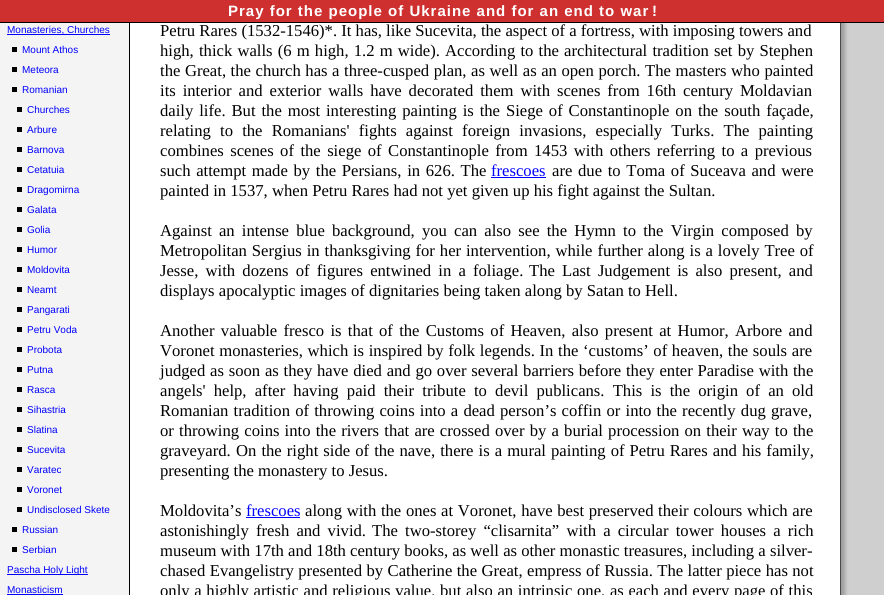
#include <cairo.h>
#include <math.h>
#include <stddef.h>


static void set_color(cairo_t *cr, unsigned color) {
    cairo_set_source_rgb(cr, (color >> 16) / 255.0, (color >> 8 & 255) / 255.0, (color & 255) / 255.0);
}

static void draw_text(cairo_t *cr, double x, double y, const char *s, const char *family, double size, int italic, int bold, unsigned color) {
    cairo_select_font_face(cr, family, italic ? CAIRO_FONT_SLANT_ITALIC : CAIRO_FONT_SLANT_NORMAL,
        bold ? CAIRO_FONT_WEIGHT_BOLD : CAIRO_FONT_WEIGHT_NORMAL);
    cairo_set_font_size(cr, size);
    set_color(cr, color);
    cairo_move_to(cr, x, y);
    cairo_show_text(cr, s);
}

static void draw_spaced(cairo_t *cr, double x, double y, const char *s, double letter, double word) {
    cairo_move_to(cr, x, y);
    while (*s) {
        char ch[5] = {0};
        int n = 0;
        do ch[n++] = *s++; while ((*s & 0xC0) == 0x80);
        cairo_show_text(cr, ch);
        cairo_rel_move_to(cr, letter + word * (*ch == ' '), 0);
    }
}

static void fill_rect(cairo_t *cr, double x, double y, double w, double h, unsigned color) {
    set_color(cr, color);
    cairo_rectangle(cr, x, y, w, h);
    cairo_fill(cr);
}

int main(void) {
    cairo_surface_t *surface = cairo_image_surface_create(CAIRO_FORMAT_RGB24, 884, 595);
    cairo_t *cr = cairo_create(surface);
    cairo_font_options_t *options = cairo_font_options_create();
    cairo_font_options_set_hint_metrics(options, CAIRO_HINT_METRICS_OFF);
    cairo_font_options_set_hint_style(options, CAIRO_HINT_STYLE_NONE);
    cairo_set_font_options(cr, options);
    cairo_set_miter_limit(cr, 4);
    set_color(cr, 0xFFFFFF);
    cairo_paint(cr);
    fill_rect(cr, 0, 0, 884, 22, 0xCE3030);
    fill_rect(cr, 0, 22, 884, 1, 0x000000);
    cairo_select_font_face(cr, "Liberation Sans", CAIRO_FONT_SLANT_NORMAL, CAIRO_FONT_WEIGHT_BOLD);
    cairo_set_font_size(cr, 15);
    set_color(cr, 0xFFFFFF);
    draw_spaced(cr, 228, 16, "Pray for the people of Ukraine and for an end to war", 1, 0);
    draw_spaced(cr, 652, 16, "!", 1, 0);
    fill_rect(cr, 0, 23, 129, 572, 0xF4F4F4);
    fill_rect(cr, 129, 23, 1, 572, 0x000000);
    draw_text(cr, 160, 36, "Petru Rares (1532-1546)*. It has, like Sucevita, the aspect of a fortress, with imposing towers and", "Liberation Serif", 16.65, 0, 0, 0x000000);
    draw_spaced(cr, 160, 56, "high, thick walls (6 m high, 1.2 m wide).", 0, 1);
    draw_spaced(cr, 445, 56, "According to the architectural tradition set by Stephen", 0, 1);
    draw_spaced(cr, 160, 76, "the Great, the church has a three-cusped plan, as well as an open porch.", 0, 0.4);
    draw_spaced(cr, 645, 76, "The masters who painted", 0, 0.5);
    draw_spaced(cr, 160, 96, "its interior and exterior walls have decorated them with scenes from 16th century Moldavian", 0, 2.75);
    draw_spaced(cr, 160, 116, "daily life. But the most interesting painting is the Siege of Constantinople on the south façade,", 0, 1.75);
    draw_spaced(cr, 160, 136, "relating to the Romanians' fights against foreign invasions, especially Turks. The painting", 0, 5);
    draw_spaced(cr, 160, 156, "combines scenes of the siege of Constantinople from 1453 with others referring to a previous", 0, 2.25);
    draw_spaced(cr, 160, 176, "such attempt made by the Persians, in 626. The", 0, 1.5);
    draw_text(cr, 491, 176, "frescoes", "Liberation Serif", 16.65, 0, 0, 0x0000FF);
    fill_rect(cr, 491, 177, 55, 1, 0x0000FF);
    set_color(cr, 0x000000);
    draw_spaced(cr, 552, 176, "are due to Toma of Suceava and were", 0, 1.5);
    draw_text(cr, 160, 196, "painted in 1537, when Petru Rares had not yet given up his fight against the Sultan.", "Liberation Serif", 16.65, 0, 0, 0x000000);
    draw_spaced(cr, 160, 236, "Against an intense blue background, you can also see the Hymn to the Virgin composed by", 0, 3);
    draw_spaced(cr, 160, 256, "Metropolitan Sergius in thanksgiving for her intervention, while further along is a lovely Tree of", 0, 0.75);
    draw_spaced(cr, 160, 276, "Jesse, with dozens of figures entwined in a foliage.", 0, 3);
    draw_spaced(cr, 529, 276, "The Last Judgement is also present, and", 0, 3);
    draw_text(cr, 160, 296, "displays apocalyptic images of dignitaries being taken along by Satan to Hell.", "Liberation Serif", 16.65, 0, 0, 0x000000);
    draw_spaced(cr, 160, 336, "Another valuable fresco is that of the Customs of Heaven, also present at Humor, Arbore and", 0, 2.1);
    draw_spaced(cr, 160, 356, "Voronet monasteries, which is inspired by folk legends. In the ‘customs’ of heaven, the souls are", 0, 0.5);
    draw_spaced(cr, 160, 376, "judged as soon as they have died and go over several barriers before they enter Paradise with the", 0, 0.6);
    draw_spaced(cr, 160, 396, "angels' help, after having paid their tribute to devil publicans. This is the origin of an old", 0, 4);
    draw_spaced(cr, 160, 416, "Romanian tradition of throwing coins into a dead person’s coffin or into the recently dug grave,", 0, 1);
    draw_spaced(cr, 160, 436, "or throwing coins into the rivers that are crossed over by a burial procession on their way to the", 0, 1);
    draw_text(cr, 160, 456, "graveyard.", "Liberation Serif", 16.65, 0, 0, 0x000000);
    draw_spaced(cr, 236, 456, "On the right side of the nave, there is a mural painting of Petru Rares and his family,", 0, 0.9);
    draw_text(cr, 160, 476, "presenting the monastery to Jesus.", "Liberation Serif", 16.65, 0, 0, 0x000000);
    draw_text(cr, 160, 516, "Moldovita’s", "Liberation Serif", 16.65, 0, 0, 0x000000);
    draw_text(cr, 246, 516, "frescoes", "Liberation Serif", 16.65, 0, 0, 0x0000FF);
    fill_rect(cr, 246, 517, 54, 1, 0x0000FF);
    set_color(cr, 0x000000);
    draw_spaced(cr, 305, 516, "along with the ones at Voronet, have best preserved their colours which are", 0, 0.5);
    draw_spaced(cr, 160, 536, "astonishingly fresh and vivid.", 0, 3);
    draw_spaced(cr, 372, 536, "The two-storey “clisarnita” with a circular tower houses a rich", 0, 3);
    draw_text(cr, 160, 556, "museum with 17th and 18th century books, as well as other monastic treasures, including a silver-", "Liberation Serif", 16.65, 0, 0, 0x000000);
    draw_spaced(cr, 160, 576, "chased Evangelistry presented by Catherine the Great, empress of Russia. The latter piece has not", 0, 0.25);
    draw_spaced(cr, 160, 596, "only a highly artistic and religious value, but also an intrinsic one, as each and every page of this", 0, 0.5);
    fill_rect(cr, 7, 34, 103, 1, 0x0000FF);
    draw_text(cr, 7, 33, "Monasteries, Churches", "Liberation Sans", 10, 0, 0, 0x0000FF);
    fill_rect(cr, 12, 47, 5, 5, 0x000000);
    draw_text(cr, 22, 53, "Mount Athos", "Liberation Sans", 10, 0, 0, 0x0000FF);
    fill_rect(cr, 12, 67, 5, 5, 0x000000);
    draw_text(cr, 22, 73, "Meteora", "Liberation Sans", 10, 0, 0, 0x0000FF);
    fill_rect(cr, 12, 87, 5, 5, 0x000000);
    draw_text(cr, 22, 93, "Romanian", "Liberation Sans", 10, 0, 0, 0x0000FF);
    fill_rect(cr, 17, 107, 5, 5, 0x000000);
    draw_text(cr, 27, 113, "Churches", "Liberation Sans", 10, 0, 0, 0x0000FF);
    fill_rect(cr, 17, 127, 5, 5, 0x000000);
    draw_text(cr, 27, 133, "Arbure", "Liberation Sans", 10, 0, 0, 0x0000FF);
    fill_rect(cr, 17, 147, 5, 5, 0x000000);
    draw_text(cr, 27, 153, "Barnova", "Liberation Sans", 10, 0, 0, 0x0000FF);
    fill_rect(cr, 17, 167, 5, 5, 0x000000);
    draw_text(cr, 27, 173, "Cetatuia", "Liberation Sans", 10, 0, 0, 0x0000FF);
    fill_rect(cr, 17, 187, 5, 5, 0x000000);
    draw_text(cr, 27, 193, "Dragomirna", "Liberation Sans", 10, 0, 0, 0x0000FF);
    fill_rect(cr, 17, 207, 5, 5, 0x000000);
    draw_text(cr, 27, 213, "Galata", "Liberation Sans", 10, 0, 0, 0x0000FF);
    fill_rect(cr, 17, 227, 5, 5, 0x000000);
    draw_text(cr, 27, 233, "Golia", "Liberation Sans", 10, 0, 0, 0x0000FF);
    fill_rect(cr, 17, 247, 5, 5, 0x000000);
    draw_text(cr, 27, 253, "Humor", "Liberation Sans", 10, 0, 0, 0x0000FF);
    fill_rect(cr, 17, 267, 5, 5, 0x000000);
    draw_text(cr, 27, 273, "Moldovita", "Liberation Sans", 10, 0, 0, 0x0000FF);
    fill_rect(cr, 17, 287, 5, 5, 0x000000);
    draw_text(cr, 27, 293, "Neamt", "Liberation Sans", 10, 0, 0, 0x0000FF);
    fill_rect(cr, 17, 307, 5, 5, 0x000000);
    draw_text(cr, 27, 313, "Pangarati", "Liberation Sans", 10, 0, 0, 0x0000FF);
    fill_rect(cr, 17, 327, 5, 5, 0x000000);
    draw_text(cr, 27, 333, "Petru Voda", "Liberation Sans", 10, 0, 0, 0x0000FF);
    fill_rect(cr, 17, 347, 5, 5, 0x000000);
    draw_text(cr, 27, 353, "Probota", "Liberation Sans", 10, 0, 0, 0x0000FF);
    fill_rect(cr, 17, 367, 5, 5, 0x000000);
    draw_text(cr, 27, 373, "Putna", "Liberation Sans", 10, 0, 0, 0x0000FF);
    fill_rect(cr, 17, 387, 5, 5, 0x000000);
    draw_text(cr, 27, 393, "Rasca", "Liberation Sans", 10, 0, 0, 0x0000FF);
    fill_rect(cr, 17, 407, 5, 5, 0x000000);
    draw_text(cr, 27, 413, "Sihastria", "Liberation Sans", 10, 0, 0, 0x0000FF);
    fill_rect(cr, 17, 427, 5, 5, 0x000000);
    draw_text(cr, 27, 433, "Slatina", "Liberation Sans", 10, 0, 0, 0x0000FF);
    fill_rect(cr, 17, 447, 5, 5, 0x000000);
    draw_text(cr, 27, 453, "Sucevita", "Liberation Sans", 10, 0, 0, 0x0000FF);
    fill_rect(cr, 17, 467, 5, 5, 0x000000);
    draw_text(cr, 27, 473, "Varatec", "Liberation Sans", 10, 0, 0, 0x0000FF);
    fill_rect(cr, 17, 487, 5, 5, 0x000000);
    draw_text(cr, 27, 493, "Voronet", "Liberation Sans", 10, 0, 0, 0x0000FF);
    fill_rect(cr, 17, 507, 5, 5, 0x000000);
    draw_text(cr, 27, 513, "Undisclosed Skete", "Liberation Sans", 10, 0, 0, 0x0000FF);
    fill_rect(cr, 12, 527, 5, 5, 0x000000);
    draw_text(cr, 22, 533, "Russian", "Liberation Sans", 10, 0, 0, 0x0000FF);
    fill_rect(cr, 12, 547, 5, 5, 0x000000);
    draw_text(cr, 22, 553, "Serbian", "Liberation Sans", 10, 0, 0, 0x0000FF);
    fill_rect(cr, 7, 574, 81, 1, 0x0000FF);
    draw_text(cr, 7, 573, "Pascha Holy Light", "Liberation Sans", 10, 0, 0, 0x0000FF);
    draw_text(cr, 7, 593, "Monasticism", "Liberation Sans", 10, 0, 0, 0x0000FF);
    fill_rect(cr, 7, 594, 56, 1, 0x0000FF);
    fill_rect(cr, 849, 23, 35, 572, 0xCFCFCF);
    fill_rect(cr, 840, 23, 1, 572, 0x4A4A4A);
    fill_rect(cr, 841, 23, 1, 572, 0x9D9D9D);
    fill_rect(cr, 842, 23, 1, 572, 0xA2A2A2);
    fill_rect(cr, 843, 23, 1, 572, 0xA8A8A8);
    fill_rect(cr, 844, 23, 1, 572, 0xB0B0B0);
    fill_rect(cr, 845, 23, 1, 572, 0xBABABA);
    fill_rect(cr, 846, 23, 1, 572, 0xC3C3C3);
    fill_rect(cr, 847, 23, 1, 572, 0xC9C9C9);
    fill_rect(cr, 848, 23, 1, 572, 0xCDCDCD);
    cairo_surface_write_to_png(surface, "output.png");
    cairo_font_options_destroy(options);
    cairo_destroy(cr);
    cairo_surface_destroy(surface);
    return 0;
}
